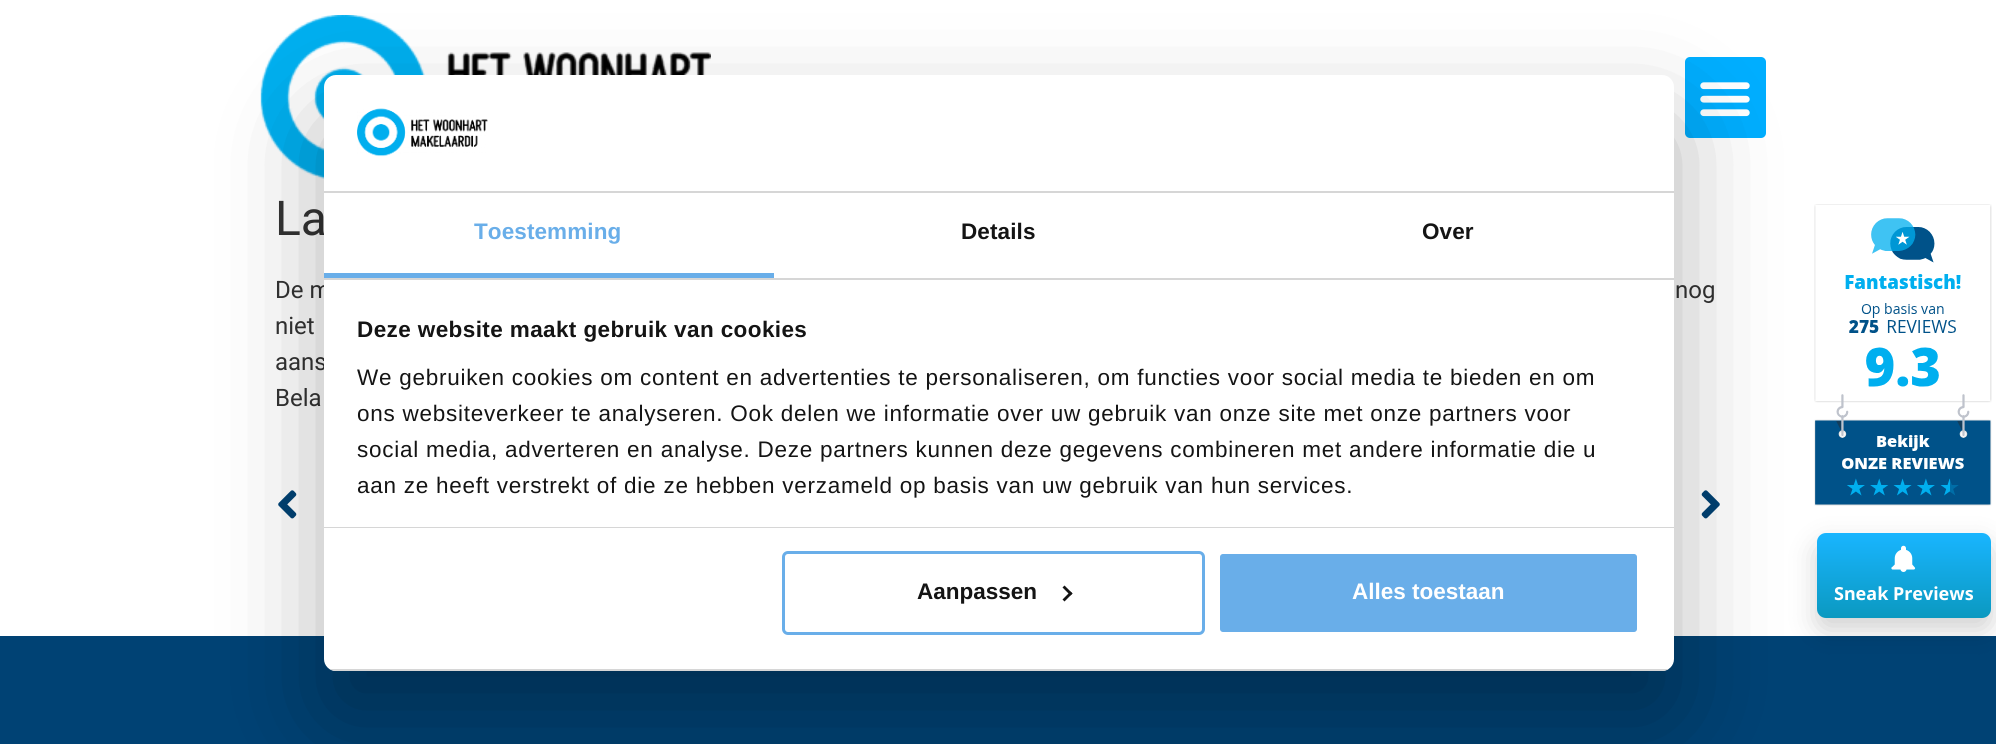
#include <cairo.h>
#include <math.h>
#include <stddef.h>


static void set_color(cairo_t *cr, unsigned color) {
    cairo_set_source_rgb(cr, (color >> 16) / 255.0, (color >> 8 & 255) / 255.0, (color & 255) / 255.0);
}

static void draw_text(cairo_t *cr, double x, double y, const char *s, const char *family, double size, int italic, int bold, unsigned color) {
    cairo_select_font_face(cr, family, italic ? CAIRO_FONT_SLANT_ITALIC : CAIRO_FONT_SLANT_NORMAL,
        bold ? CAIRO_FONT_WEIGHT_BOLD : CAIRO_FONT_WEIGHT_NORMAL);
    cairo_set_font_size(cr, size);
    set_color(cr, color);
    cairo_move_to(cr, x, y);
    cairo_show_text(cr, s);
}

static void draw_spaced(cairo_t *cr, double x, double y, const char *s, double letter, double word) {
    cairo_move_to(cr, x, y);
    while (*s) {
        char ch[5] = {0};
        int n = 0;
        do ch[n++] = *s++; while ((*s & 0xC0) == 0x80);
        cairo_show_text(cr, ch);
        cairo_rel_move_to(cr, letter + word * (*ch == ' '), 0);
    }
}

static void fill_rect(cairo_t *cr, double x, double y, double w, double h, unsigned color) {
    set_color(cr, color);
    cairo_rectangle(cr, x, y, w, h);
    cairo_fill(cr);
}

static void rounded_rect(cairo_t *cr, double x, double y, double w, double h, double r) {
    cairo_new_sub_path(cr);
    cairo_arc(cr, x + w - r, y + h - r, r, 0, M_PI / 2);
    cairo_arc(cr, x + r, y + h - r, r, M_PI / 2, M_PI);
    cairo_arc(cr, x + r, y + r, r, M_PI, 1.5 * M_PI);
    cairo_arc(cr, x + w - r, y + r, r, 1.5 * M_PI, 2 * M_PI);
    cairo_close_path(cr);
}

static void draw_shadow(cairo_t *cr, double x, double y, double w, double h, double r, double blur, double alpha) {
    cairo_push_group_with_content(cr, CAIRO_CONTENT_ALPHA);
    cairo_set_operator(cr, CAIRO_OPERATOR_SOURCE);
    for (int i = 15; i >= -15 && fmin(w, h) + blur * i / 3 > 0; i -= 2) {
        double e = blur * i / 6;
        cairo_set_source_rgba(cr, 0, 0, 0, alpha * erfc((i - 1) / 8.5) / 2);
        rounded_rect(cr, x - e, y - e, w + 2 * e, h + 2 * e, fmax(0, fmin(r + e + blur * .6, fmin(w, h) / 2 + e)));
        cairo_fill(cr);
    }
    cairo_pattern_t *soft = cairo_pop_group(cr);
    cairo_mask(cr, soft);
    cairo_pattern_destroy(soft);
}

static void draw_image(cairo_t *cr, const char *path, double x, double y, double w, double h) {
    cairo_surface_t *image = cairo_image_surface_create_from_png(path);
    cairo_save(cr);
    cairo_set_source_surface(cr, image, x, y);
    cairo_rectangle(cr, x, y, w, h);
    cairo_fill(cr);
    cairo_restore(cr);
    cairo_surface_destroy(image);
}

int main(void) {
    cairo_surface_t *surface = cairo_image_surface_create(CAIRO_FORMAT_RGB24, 1996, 744);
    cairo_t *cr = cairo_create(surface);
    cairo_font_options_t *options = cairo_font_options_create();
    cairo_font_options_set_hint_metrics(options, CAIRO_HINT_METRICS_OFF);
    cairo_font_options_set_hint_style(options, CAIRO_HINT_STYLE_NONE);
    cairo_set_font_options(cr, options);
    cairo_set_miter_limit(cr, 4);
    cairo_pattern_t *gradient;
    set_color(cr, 0xFFFFFF);
    cairo_paint(cr);
    draw_image(cr, "assets/img1.png", 260, 15, 451, 164);
    set_color(cr, 0x00AEFF);
    rounded_rect(cr, 1685, 57, 81, 81, 5);
    cairo_fill(cr);
    draw_image(cr, "assets/img2.png", 1700, 82, 50, 35);
    draw_text(cr, 275, 235, "La", "Roboto", 48, 0, 0, 0x333333);
    draw_text(cr, 275, 298, "De m", "Roboto", 24, 0, 0, 0x333333);
    draw_text(cr, 1675, 298, "nog", "Roboto", 24, 0, 0, 0x333333);
    draw_text(cr, 275, 334, "niet", "Roboto", 24, 0, 0, 0x333333);
    draw_text(cr, 275, 370, "aans", "Roboto", 24, 0, 0, 0x333333);
    draw_text(cr, 275, 406, "Bela", "Roboto", 24, 0, 0, 0x333333);
    draw_image(cr, "assets/img3.png", 278, 490, 19, 29);
    draw_image(cr, "assets/img4.png", 1701, 490, 19, 29);
    draw_image(cr, "assets/img5.png", 1814, 204, 178, 302);
    fill_rect(cr, 0, 636, 1996, 108, 0x004274);
    set_color(cr, 0x000000);
    draw_shadow(cr, 324, 123, 1350, 596, 12, 51, 0.3);
    set_color(cr, 0xFFFFFF);
    rounded_rect(cr, 324, 75, 1350, 596, 12);
    cairo_fill(cr);
    fill_rect(cr, 324, 191, 1350, 2, 0xD6D6D6);
    draw_image(cr, "assets/img6.png", 357, 108, 131, 49);
    fill_rect(cr, 324, 278, 1350, 2, 0xD6D6D6);
    fill_rect(cr, 324, 273, 450, 5, 0x69AEE9);
    cairo_select_font_face(cr, "Liberation Sans", CAIRO_FONT_SLANT_NORMAL, CAIRO_FONT_WEIGHT_BOLD);
    cairo_set_font_size(cr, 22.5);
    draw_spaced(cr, 474, 239, "Toestemming", 0.1, 0);
    set_color(cr, 0x141414);
    draw_spaced(cr, 961, 239, "Details", 0.1, 0);
    draw_spaced(cr, 1422, 239, "Over", 0.1, 0);
    fill_rect(cr, 324, 527, 1350, 1, 0xD6D6D6);
    set_color(cr, 0x141414);
    draw_spaced(cr, 357, 337, "Deze website maakt gebruik van cookies", 0.4, 0);
    cairo_select_font_face(cr, "Liberation Sans", CAIRO_FONT_SLANT_NORMAL, CAIRO_FONT_WEIGHT_NORMAL);
    draw_spaced(cr, 357, 385, "We gebruiken cookies om content en advertenties te personaliseren, om functies voor social media te bieden en om", 0.75, 0);
    draw_spaced(cr, 357, 421, "ons websiteverkeer te analyseren. Ook delen we informatie over uw gebruik van onze site met onze partners voor", 0.75, 0);
    draw_spaced(cr, 357, 457, "social media, adverteren en analyse. Deze partners kunnen deze gegevens combineren met andere informatie die u", 0.75, 0);
    draw_spaced(cr, 357, 493, "aan ze heeft verstrekt of die ze hebben verzameld op basis van uw gebruik van hun services.", 0.75, 0);
    cairo_save(cr);
    rounded_rect(cr, 324, 75, 1350, 596, 12);
    cairo_clip(cr);
    fill_rect(cr, 324, 669, 1350, 2, 0xD6D6D6);
    cairo_restore(cr);
    rounded_rect(cr, 783.5, 552.5, 420, 81, 4.5);
    set_color(cr, 0x69AEE9);
    cairo_set_line_width(cr, 3);
    cairo_stroke(cr);
    draw_text(cr, 917, 599, "Aanpassen", "Liberation Sans", 22.5, 0, 1, 0x141414);
    cairo_new_path(cr);
    cairo_move_to(cr, 1064.5, 585.5);
    cairo_line_to(cr, 1072.5, 593.5);
    cairo_line_to(cr, 1070.5, 595.5);
    cairo_line_to(cr, 1062.5, 587.5);
    cairo_close_path(cr);
    cairo_fill(cr);
    cairo_new_path(cr);
    cairo_move_to(cr, 1070.5, 591.5);
    cairo_line_to(cr, 1072.5, 593.5);
    cairo_line_to(cr, 1064.5, 601.5);
    cairo_line_to(cr, 1062.5, 599.5);
    cairo_close_path(cr);
    cairo_fill(cr);
    set_color(cr, 0x69AEE9);
    rounded_rect(cr, 1218.5, 552.5, 420, 81, 4.5);
    cairo_fill_preserve(cr);
    set_color(cr, 0xFFFFFF);
    cairo_stroke(cr);
    draw_text(cr, 1352, 599, "Alles toestaan", "Liberation Sans", 22.5, 0, 1, 0xFFFFFF);
    set_color(cr, 0x000000);
    draw_shadow(cr, 1817, 545, 174, 85, 9, 13.5, 0.18);
    gradient = cairo_pattern_create_linear(1904, 533, 1904, 618);
    cairo_pattern_add_color_stop_rgba(gradient, 0, 0.098, 0.71, 1, 1);
    cairo_pattern_add_color_stop_rgba(gradient, 1, 0.043, 0.6, 0.753, 1);
    cairo_set_source(cr, gradient);
    cairo_pattern_destroy(gradient);
    rounded_rect(cr, 1817, 533, 174, 85, 9);
    cairo_fill(cr);
    draw_image(cr, "assets/img7.png", 1891, 545, 25, 27);
    draw_text(cr, 1834, 600, "Sneak Previews", "Noto Sans", 18, 0, 1, 0xFFFFFF);
    cairo_surface_write_to_png(surface, "output.png");
    cairo_font_options_destroy(options);
    cairo_destroy(cr);
    cairo_surface_destroy(surface);
    return 0;
}
